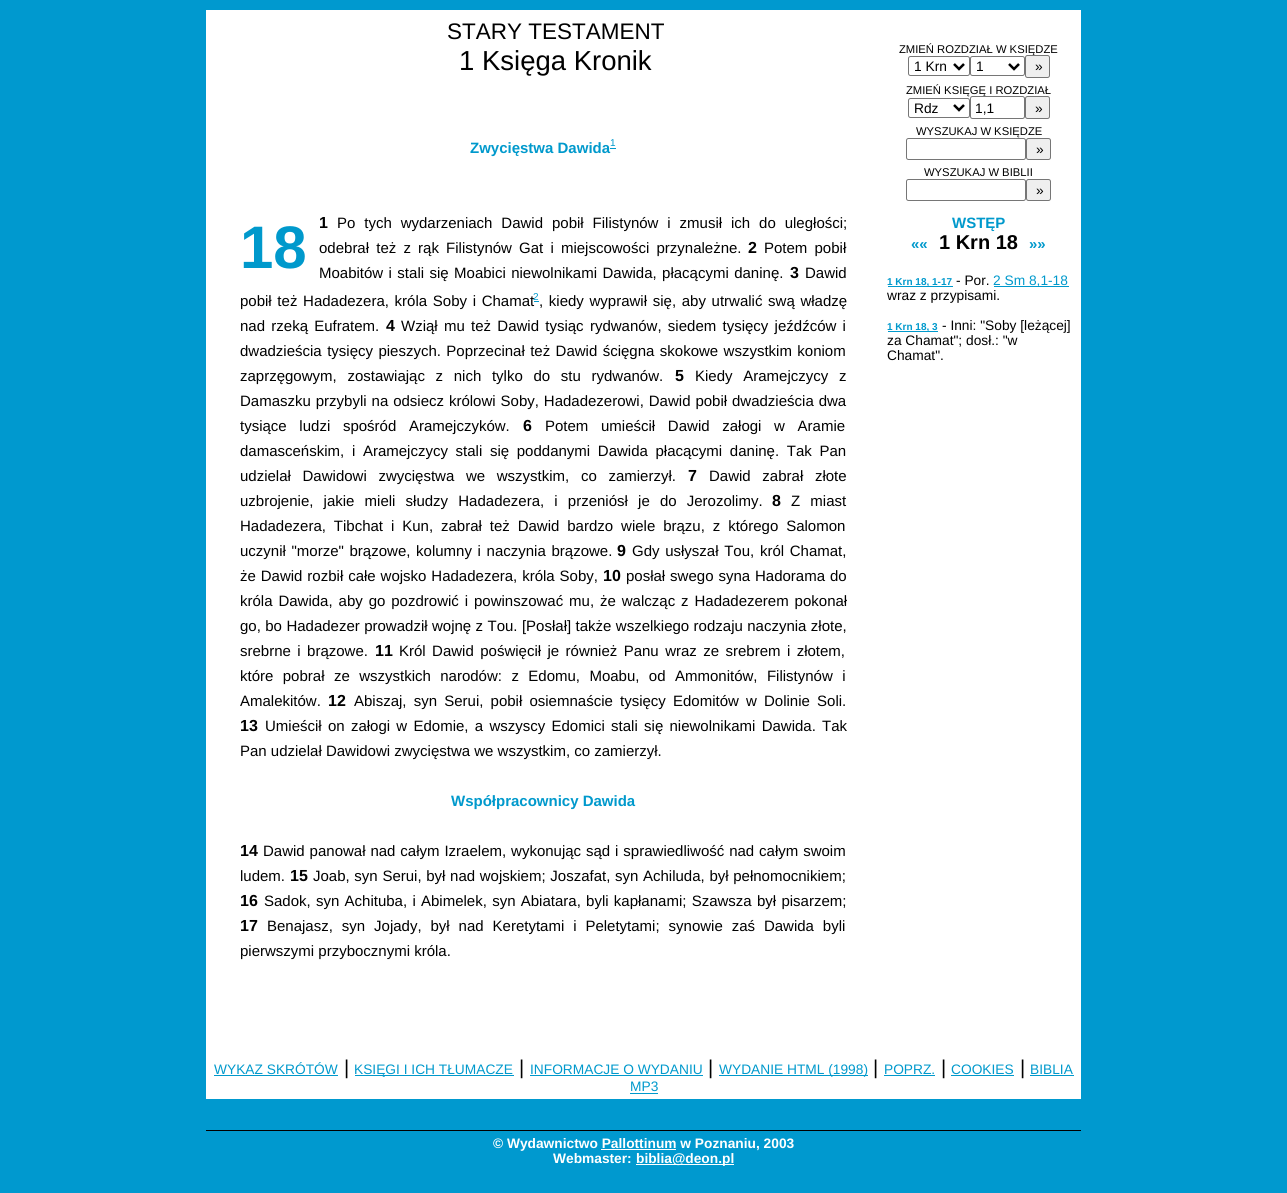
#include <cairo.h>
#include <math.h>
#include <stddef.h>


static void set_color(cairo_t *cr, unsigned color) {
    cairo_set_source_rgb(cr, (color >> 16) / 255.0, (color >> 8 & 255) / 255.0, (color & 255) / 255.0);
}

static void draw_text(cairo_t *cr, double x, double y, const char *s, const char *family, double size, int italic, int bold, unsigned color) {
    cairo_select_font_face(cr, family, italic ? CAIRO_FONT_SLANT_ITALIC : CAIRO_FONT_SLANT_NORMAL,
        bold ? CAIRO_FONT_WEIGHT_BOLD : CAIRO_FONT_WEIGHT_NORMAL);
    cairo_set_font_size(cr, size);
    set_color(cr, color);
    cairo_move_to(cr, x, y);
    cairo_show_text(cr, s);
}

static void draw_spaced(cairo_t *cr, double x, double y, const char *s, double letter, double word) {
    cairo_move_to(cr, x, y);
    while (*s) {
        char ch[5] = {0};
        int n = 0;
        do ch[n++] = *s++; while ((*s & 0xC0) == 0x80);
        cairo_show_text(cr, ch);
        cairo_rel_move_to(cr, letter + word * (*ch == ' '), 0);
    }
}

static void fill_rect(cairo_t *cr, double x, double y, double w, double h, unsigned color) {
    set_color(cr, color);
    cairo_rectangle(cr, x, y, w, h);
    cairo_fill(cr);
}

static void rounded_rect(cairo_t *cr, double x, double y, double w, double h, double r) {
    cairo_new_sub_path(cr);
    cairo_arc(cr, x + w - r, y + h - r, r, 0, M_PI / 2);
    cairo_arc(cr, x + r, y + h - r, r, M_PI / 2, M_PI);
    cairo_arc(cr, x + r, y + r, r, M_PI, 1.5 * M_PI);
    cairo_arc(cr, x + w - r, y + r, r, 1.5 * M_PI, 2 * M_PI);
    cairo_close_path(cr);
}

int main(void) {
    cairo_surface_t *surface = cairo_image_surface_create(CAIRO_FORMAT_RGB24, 1287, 1193);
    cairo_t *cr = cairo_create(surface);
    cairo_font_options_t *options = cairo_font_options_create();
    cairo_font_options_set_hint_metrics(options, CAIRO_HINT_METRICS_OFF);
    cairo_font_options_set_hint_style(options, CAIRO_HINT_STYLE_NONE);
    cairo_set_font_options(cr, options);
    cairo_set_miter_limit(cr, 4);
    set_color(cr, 0x0099CF);
    cairo_paint(cr);
    fill_rect(cr, 206, 10, 875, 1089, 0xFFFFFF);
    draw_text(cr, 447, 39, "STARY TESTAMENT", "Liberation Sans", 22.5, 0, 0, 0x000000);
    draw_text(cr, 459, 70, "1 Księga Kronik", "Liberation Sans", 27.5, 0, 0, 0x000000);
    draw_text(cr, 470, 153, "Zwycięstwa Dawida", "Liberation Sans", 15, 0, 1, 0x0099CC);
    draw_text(cr, 610, 146, "1", "Liberation Sans", 10, 0, 0, 0x0099CC);
    fill_rect(cr, 610, 148, 6, 1, 0x0099CC);
    draw_text(cr, 319, 228, "1", "Liberation Sans", 16, 0, 1, 0x000000);
    cairo_select_font_face(cr, "Liberation Sans", CAIRO_FONT_SLANT_NORMAL, CAIRO_FONT_WEIGHT_NORMAL);
    cairo_set_font_size(cr, 15);
    draw_spaced(cr, 337, 228, "Po tych wydarzeniach Dawid pobił Filistynów i zmusił ich do uległości;", 0, 4.75);
    draw_text(cr, 240, 268, "18", "Liberation Sans", 60, 0, 1, 0x0099CC);
    cairo_select_font_face(cr, "Liberation Sans", CAIRO_FONT_SLANT_NORMAL, CAIRO_FONT_WEIGHT_NORMAL);
    cairo_set_font_size(cr, 15);
    set_color(cr, 0x000000);
    draw_spaced(cr, 319, 253, "odebrał też z rąk Filistynów Gat i miejscowości przynależne.", 0, 3);
    draw_text(cr, 748, 253, "2", "Liberation Sans", 16, 0, 1, 0x000000);
    cairo_select_font_face(cr, "Liberation Sans", CAIRO_FONT_SLANT_NORMAL, CAIRO_FONT_WEIGHT_NORMAL);
    cairo_set_font_size(cr, 15);
    draw_spaced(cr, 764, 253, "Potem pobił", 0, 3);
    draw_spaced(cr, 319, 278, "Moabitów i stali się Moabici niewolnikami Dawida, płacącymi daninę.", 0, 1.25);
    draw_text(cr, 790, 278, "3", "Liberation Sans", 16, 0, 1, 0x000000);
    draw_text(cr, 805, 278, "Dawid", "Liberation Sans", 15, 0, 0, 0x000000);
    draw_spaced(cr, 240, 306, "pobił też Hadadezera, króla Soby i Chamat", 0, 1.5);
    draw_text(cr, 533, 300, "2", "Liberation Sans", 10, 0, 0, 0x0099CC);
    fill_rect(cr, 534, 301, 5, 1, 0x0099CC);
    cairo_set_font_size(cr, 15);
    set_color(cr, 0x000000);
    draw_spaced(cr, 539, 306, ", kiedy wyprawił się, aby utrwalić swą władzę", 0, 1.5);
    draw_spaced(cr, 240, 331, "nad rzeką Eufratem.", 0, 2.1);
    draw_text(cr, 386, 331, "4", "Liberation Sans", 16, 0, 1, 0x000000);
    cairo_select_font_face(cr, "Liberation Sans", CAIRO_FONT_SLANT_NORMAL, CAIRO_FONT_WEIGHT_NORMAL);
    cairo_set_font_size(cr, 15);
    draw_spaced(cr, 401, 331, "Wziął mu też Dawid tysiąc rydwanów, siedem tysięcy jeźdźców i", 0, 2.1);
    draw_spaced(cr, 240, 356, "dwadzieścia tysięcy pieszych. Poprzecinał też Dawid ścięgna skokowe wszystkim koniom", 0, 1.25);
    draw_spaced(cr, 240, 381, "zaprzęgowym, zostawiając z nich tylko do stu rydwanów.", 0, 6.5);
    draw_text(cr, 675, 381, "5", "Liberation Sans", 16, 0, 1, 0x000000);
    cairo_select_font_face(cr, "Liberation Sans", CAIRO_FONT_SLANT_NORMAL, CAIRO_FONT_WEIGHT_NORMAL);
    cairo_set_font_size(cr, 15);
    draw_spaced(cr, 695, 381, "Kiedy Aramejczycy z", 0, 6.5);
    draw_spaced(cr, 240, 406, "Damaszku przybyli na odsiecz królowi Soby, Hadadezerowi, Dawid pobił dwadzieścia dwa", 0, 0.75);
    draw_spaced(cr, 240, 431, "tysiące ludzi spośród Aramejczyków.", 0, 8.5);
    draw_text(cr, 523, 431, "6", "Liberation Sans", 16, 0, 1, 0x000000);
    cairo_select_font_face(cr, "Liberation Sans", CAIRO_FONT_SLANT_NORMAL, CAIRO_FONT_WEIGHT_NORMAL);
    cairo_set_font_size(cr, 15);
    draw_spaced(cr, 545, 431, "Potem umieścił Dawid załogi w Aramie", 0, 8.5);
    draw_spaced(cr, 240, 456, "damasceńskim, i Aramejczycy stali się poddanymi Dawida płacącymi daninę. Tak Pan", 0, 3.5);
    draw_spaced(cr, 240, 481, "udzielał Dawidowi zwycięstwa we wszystkim, co zamierzył.", 0, 7.5);
    draw_text(cr, 688, 481, "7", "Liberation Sans", 16, 0, 1, 0x000000);
    cairo_select_font_face(cr, "Liberation Sans", CAIRO_FONT_SLANT_NORMAL, CAIRO_FONT_WEIGHT_NORMAL);
    cairo_set_font_size(cr, 15);
    draw_spaced(cr, 709, 481, "Dawid zabrał złote", 0, 7.5);
    draw_spaced(cr, 240, 506, "uzbrojenie, jakie mieli słudzy Hadadezera, i przeniósł je do Jerozolimy.", 0, 6);
    draw_text(cr, 772, 506, "8", "Liberation Sans", 16, 0, 1, 0x000000);
    cairo_select_font_face(cr, "Liberation Sans", CAIRO_FONT_SLANT_NORMAL, CAIRO_FONT_WEIGHT_NORMAL);
    cairo_set_font_size(cr, 15);
    draw_spaced(cr, 791, 506, "Z miast", 0, 6);
    draw_spaced(cr, 240, 531, "Hadadezera, Tibchat i Kun, zabrał też Dawid bardzo wiele brązu, z którego Salomon", 0, 3.75);
    draw_spaced(cr, 240, 556, "uczynił \"morze\" brązowe, kolumny i naczynia brązowe.", 0, 1.5);
    draw_text(cr, 617, 556, "9", "Liberation Sans", 16, 0, 1, 0x000000);
    cairo_select_font_face(cr, "Liberation Sans", CAIRO_FONT_SLANT_NORMAL, CAIRO_FONT_WEIGHT_NORMAL);
    cairo_set_font_size(cr, 15);
    draw_spaced(cr, 632, 556, "Gdy usłyszał Tou, król Chamat,", 0, 1.5);
    draw_spaced(cr, 240, 581, "że Dawid rozbił całe wojsko Hadadezera, króla Soby,", 0, 0.75);
    draw_text(cr, 603, 581, "10", "Liberation Sans", 16, 0, 1, 0x000000);
    cairo_select_font_face(cr, "Liberation Sans", CAIRO_FONT_SLANT_NORMAL, CAIRO_FONT_WEIGHT_NORMAL);
    cairo_set_font_size(cr, 15);
    draw_spaced(cr, 626, 581, "posłał swego syna Hadorama do", 0, 0.75);
    draw_spaced(cr, 240, 606, "króla Dawida, aby go pozdrowić i powinszować mu, że walcząc z Hadadezerem pokonał", 0, 1.75);
    draw_spaced(cr, 240, 631, "go, bo Hadadezer prowadził wojnę z Tou. [Posłał] także wszelkiego rodzaju naczynia złote,", 0, 0.25);
    draw_spaced(cr, 240, 656, "srebrne i brązowe.", 0, 2.25);
    draw_text(cr, 375, 656, "11", "Liberation Sans", 16, 0, 1, 0x000000);
    cairo_select_font_face(cr, "Liberation Sans", CAIRO_FONT_SLANT_NORMAL, CAIRO_FONT_WEIGHT_NORMAL);
    cairo_set_font_size(cr, 15);
    draw_spaced(cr, 399, 656, "Król Dawid poświęcił je również Panu wraz ze srebrem i złotem,", 0, 2.25);
    draw_spaced(cr, 240, 681, "które pobrał ze wszystkich narodów: z Edomu, Moabu, od Ammonitów, Filistynów i", 0, 5.25);
    draw_text(cr, 240, 706, "Amalekitów.", "Liberation Sans", 15, 0, 0, 0x000000);
    draw_text(cr, 328, 706, "12", "Liberation Sans", 16, 0, 1, 0x000000);
    cairo_select_font_face(cr, "Liberation Sans", CAIRO_FONT_SLANT_NORMAL, CAIRO_FONT_WEIGHT_NORMAL);
    cairo_set_font_size(cr, 15);
    draw_spaced(cr, 354, 706, "Abiszaj, syn Serui, pobił osiemnaście tysięcy Edomitów w Dolinie Soli.", 0, 3);
    draw_text(cr, 240, 731, "13", "Liberation Sans", 16, 0, 1, 0x000000);
    cairo_select_font_face(cr, "Liberation Sans", CAIRO_FONT_SLANT_NORMAL, CAIRO_FONT_WEIGHT_NORMAL);
    cairo_set_font_size(cr, 15);
    draw_spaced(cr, 265, 731, "Umieścił on załogi w Edomie, a wszyscy Edomici stali się niewolnikami Dawida. Tak", 0, 2.1);
    draw_text(cr, 240, 756, "Pan udzielał Dawidowi zwycięstwa we wszystkim, co zamierzył.", "Liberation Sans", 15, 0, 0, 0x000000);
    draw_text(cr, 451, 806, "Współpracownicy Dawida", "Liberation Sans", 15, 0, 1, 0x0099CC);
    draw_text(cr, 240, 856, "14", "Liberation Sans", 16, 0, 1, 0x000000);
    cairo_select_font_face(cr, "Liberation Sans", CAIRO_FONT_SLANT_NORMAL, CAIRO_FONT_WEIGHT_NORMAL);
    cairo_set_font_size(cr, 15);
    draw_spaced(cr, 263, 856, "Dawid panował nad całym Izraelem, wykonując sąd i sprawiedliwość nad całym swoim", 0, 0.75);
    draw_text(cr, 240, 881, "ludem.", "Liberation Sans", 15, 0, 0, 0x000000);
    draw_text(cr, 290, 881, "15", "Liberation Sans", 16, 0, 1, 0x000000);
    cairo_select_font_face(cr, "Liberation Sans", CAIRO_FONT_SLANT_NORMAL, CAIRO_FONT_WEIGHT_NORMAL);
    cairo_set_font_size(cr, 15);
    draw_spaced(cr, 313, 881, "Joab, syn Serui, był nad wojskiem; Joszafat, syn Achiluda, był pełnomocnikiem;", 0, 0.5);
    draw_text(cr, 240, 906, "16", "Liberation Sans", 16, 0, 1, 0x000000);
    cairo_select_font_face(cr, "Liberation Sans", CAIRO_FONT_SLANT_NORMAL, CAIRO_FONT_WEIGHT_NORMAL);
    cairo_set_font_size(cr, 15);
    draw_spaced(cr, 264, 906, "Sadok, syn Achituba, i Abimelek, syn Abiatara, byli kapłanami; Szawsza był pisarzem;", 0, 1.1);
    draw_text(cr, 240, 931, "17", "Liberation Sans", 16, 0, 1, 0x000000);
    cairo_select_font_face(cr, "Liberation Sans", CAIRO_FONT_SLANT_NORMAL, CAIRO_FONT_WEIGHT_NORMAL);
    cairo_set_font_size(cr, 15);
    draw_spaced(cr, 267, 931, "Benajasz, syn Jojady, był nad Keretytami i Peletytami; synowie zaś Dawida byli", 0, 4.75);
    draw_text(cr, 240, 956, "pierwszymi przybocznymi króla.", "Liberation Sans", 15, 0, 0, 0x000000);
    draw_text(cr, 899, 53, "ZMIEŃ ROZDZIAŁ W KSIĘDZE", "Liberation Sans", 11.25, 0, 0, 0x000000);
    rounded_rect(cr, 908.5, 56.5, 61, 19, 2);
    set_color(cr, 0x767676);
    cairo_set_line_width(cr, 1);
    cairo_stroke(cr);
    cairo_new_path(cr);
    cairo_move_to(cr, 954, 64);
    cairo_line_to(cr, 959, 69);
    cairo_line_to(cr, 964, 64);
    set_color(cr, 0x000000);
    cairo_set_line_width(cr, 2.5);
    cairo_stroke(cr);
    draw_text(cr, 914, 71, "1 Krn", "Liberation Sans", 13.75, 0, 0, 0x000000);
    rounded_rect(cr, 970.5, 56.5, 54, 19, 2);
    set_color(cr, 0x767676);
    cairo_set_line_width(cr, 1);
    cairo_stroke(cr);
    cairo_new_path(cr);
    cairo_move_to(cr, 1009, 64);
    cairo_line_to(cr, 1014, 69);
    cairo_line_to(cr, 1019, 64);
    set_color(cr, 0x000000);
    cairo_set_line_width(cr, 2.5);
    cairo_stroke(cr);
    draw_text(cr, 976, 71, "1", "Liberation Sans", 13.75, 0, 0, 0x000000);
    set_color(cr, 0xEFEFEF);
    rounded_rect(cr, 1025.5, 55.5, 24, 22, 2);
    cairo_fill_preserve(cr);
    set_color(cr, 0x767676);
    cairo_set_line_width(cr, 1);
    cairo_stroke(cr);
    draw_text(cr, 1035, 71, "»", "Liberation Sans", 13.75, 0, 0, 0x000000);
    draw_text(cr, 906, 94, "ZMIEŃ KSIĘGĘ I ROZDZIAŁ", "Liberation Sans", 11.25, 0, 0, 0x000000);
    rounded_rect(cr, 908.5, 98.5, 61, 19, 2);
    set_color(cr, 0x767676);
    cairo_stroke(cr);
    cairo_new_path(cr);
    cairo_move_to(cr, 954, 105);
    cairo_line_to(cr, 959, 110);
    cairo_line_to(cr, 964, 105);
    set_color(cr, 0x000000);
    cairo_set_line_width(cr, 2.5);
    cairo_stroke(cr);
    draw_text(cr, 914, 113, "Rdz", "Liberation Sans", 13.75, 0, 0, 0x000000);
    set_color(cr, 0xFFFFFF);
    rounded_rect(cr, 970.5, 96.5, 54, 22, 2);
    cairo_fill_preserve(cr);
    set_color(cr, 0x767676);
    cairo_set_line_width(cr, 1);
    cairo_stroke(cr);
    draw_text(cr, 975, 113, "1,1", "Liberation Sans", 13.75, 0, 0, 0x000000);
    set_color(cr, 0xEFEFEF);
    rounded_rect(cr, 1025.5, 96.5, 24, 22, 2);
    cairo_fill_preserve(cr);
    set_color(cr, 0x767676);
    cairo_stroke(cr);
    draw_text(cr, 1035, 113, "»", "Liberation Sans", 13.75, 0, 0, 0x000000);
    draw_text(cr, 916, 135, "WYSZUKAJ W KSIĘDZE", "Liberation Sans", 11.25, 0, 0, 0x000000);
    rounded_rect(cr, 906.5, 138.5, 119, 21, 2);
    set_color(cr, 0x767676);
    cairo_stroke(cr);
    set_color(cr, 0xEFEFEF);
    rounded_rect(cr, 1026.5, 138.5, 24, 21, 2);
    cairo_fill_preserve(cr);
    set_color(cr, 0x767676);
    cairo_stroke(cr);
    draw_text(cr, 1036, 154, "»", "Liberation Sans", 13.75, 0, 0, 0x000000);
    draw_text(cr, 924, 176, "WYSZUKAJ W BIBLII", "Liberation Sans", 11.25, 0, 0, 0x000000);
    rounded_rect(cr, 906.5, 179.5, 119, 21, 2);
    set_color(cr, 0x767676);
    cairo_stroke(cr);
    set_color(cr, 0xEFEFEF);
    rounded_rect(cr, 1026.5, 179.5, 24, 21, 2);
    cairo_fill_preserve(cr);
    set_color(cr, 0x767676);
    cairo_stroke(cr);
    draw_text(cr, 1036, 195, "»", "Liberation Sans", 13.75, 0, 0, 0x000000);
    draw_text(cr, 952, 228, "WSTĘP", "Liberation Sans", 15, 0, 1, 0x0099CC);
    draw_text(cr, 911, 249, "««", "Liberation Sans", 15, 0, 1, 0x0099CC);
    draw_text(cr, 939, 249, "1 Krn 18", "Liberation Sans", 20, 0, 1, 0x000000);
    draw_text(cr, 1029, 249, "»»", "Liberation Sans", 15, 0, 1, 0x0099CC);
    fill_rect(cr, 888, 286, 65, 1, 0x0099CC);
    draw_text(cr, 887, 285, "1 Krn 18, 1-17", "Liberation Sans", 10, 0, 1, 0x0099CC);
    draw_text(cr, 956, 285, "- Por.", "Liberation Sans", 13.75, 0, 0, 0x000000);
    fill_rect(cr, 994, 286, 75, 1, 0x0099CC);
    draw_text(cr, 993, 285, "2 Sm 8,1-18", "Liberation Sans", 13.75, 0, 0, 0x0099CC);
    draw_text(cr, 887, 300, "wraz z przypisami.", "Liberation Sans", 13.75, 0, 0, 0x000000);
    fill_rect(cr, 888, 331, 50, 1, 0x0099CC);
    draw_text(cr, 887, 330, "1 Krn 18, 3", "Liberation Sans", 10, 0, 1, 0x0099CC);
    draw_text(cr, 942, 330, "- Inni: \"Soby [leżącej]", "Liberation Sans", 13.75, 0, 0, 0x000000);
    draw_text(cr, 887, 345, "za Chamat\"; dosł.: \"w", "Liberation Sans", 13.75, 0, 0, 0x000000);
    draw_text(cr, 887, 360, "Chamat\".", "Liberation Sans", 13.75, 0, 0, 0x000000);
    draw_text(cr, 214, 1074, "WYKAZ SKRÓTÓW", "Liberation Sans", 13.75, 0, 0, 0x0099CC);
    fill_rect(cr, 214, 1075, 124, 1, 0x0099CC);
    draw_text(cr, 344, 1074, "|", "Liberation Sans", 20, 0, 0, 0x000000);
    fill_rect(cr, 355, 1075, 159, 1, 0x0099CC);
    draw_text(cr, 354, 1074, "KSIĘGI I ICH TŁUMACZE", "Liberation Sans", 13.75, 0, 0, 0x0099CC);
    draw_text(cr, 519, 1074, "|", "Liberation Sans", 20, 0, 0, 0x000000);
    draw_text(cr, 530, 1074, "INFORMACJE O WYDANIU", "Liberation Sans", 13.75, 0, 0, 0x0099CC);
    fill_rect(cr, 530, 1075, 173, 1, 0x0099CC);
    draw_text(cr, 708, 1074, "|", "Liberation Sans", 20, 0, 0, 0x000000);
    fill_rect(cr, 719, 1075, 149, 1, 0x0099CC);
    draw_text(cr, 719, 1074, "WYDANIE HTML (1998)", "Liberation Sans", 13.75, 0, 0, 0x0099CC);
    draw_text(cr, 873, 1074, "|", "Liberation Sans", 20, 0, 0, 0x000000);
    draw_text(cr, 884, 1074, "POPRZ.", "Liberation Sans", 13.75, 0, 0, 0x0099CC);
    fill_rect(cr, 884, 1075, 51, 1, 0x0099CC);
    draw_text(cr, 941, 1074, "|", "Liberation Sans", 20, 0, 0, 0x000000);
    draw_text(cr, 951, 1074, "COOKIES", "Liberation Sans", 13.75, 0, 0, 0x0099CC);
    fill_rect(cr, 951, 1075, 63, 1, 0x0099CC);
    draw_text(cr, 1020, 1074, "|", "Liberation Sans", 20, 0, 0, 0x000000);
    draw_text(cr, 1030, 1074, "BIBLIA", "Liberation Sans", 13.75, 0, 0, 0x0099CC);
    fill_rect(cr, 1030, 1075, 44, 1, 0x0099CC);
    draw_text(cr, 630, 1091, "MP3", "Liberation Sans", 13.75, 0, 0, 0x0099CC);
    fill_rect(cr, 630, 1093, 28, 1, 0x0099CC);
    fill_rect(cr, 206, 1130, 875, 1, 0x000000);
    draw_text(cr, 493, 1148, "© Wydawnictwo Pallottinum w Poznaniu, 2003", "Liberation Sans", 13.75, 0, 1, 0xFFFFFF);
    fill_rect(cr, 601, 1149, 75, 1, 0xFFFFFF);
    draw_text(cr, 553, 1163, "Webmaster:", "Liberation Sans", 13.75, 0, 1, 0xFFFFFF);
    fill_rect(cr, 636, 1164, 98, 1, 0xFFFFFF);
    draw_text(cr, 636, 1163, "biblia@deon.pl", "Liberation Sans", 13.75, 0, 1, 0xFFFFFF);
    cairo_surface_write_to_png(surface, "output.png");
    cairo_font_options_destroy(options);
    cairo_destroy(cr);
    cairo_surface_destroy(surface);
    return 0;
}
